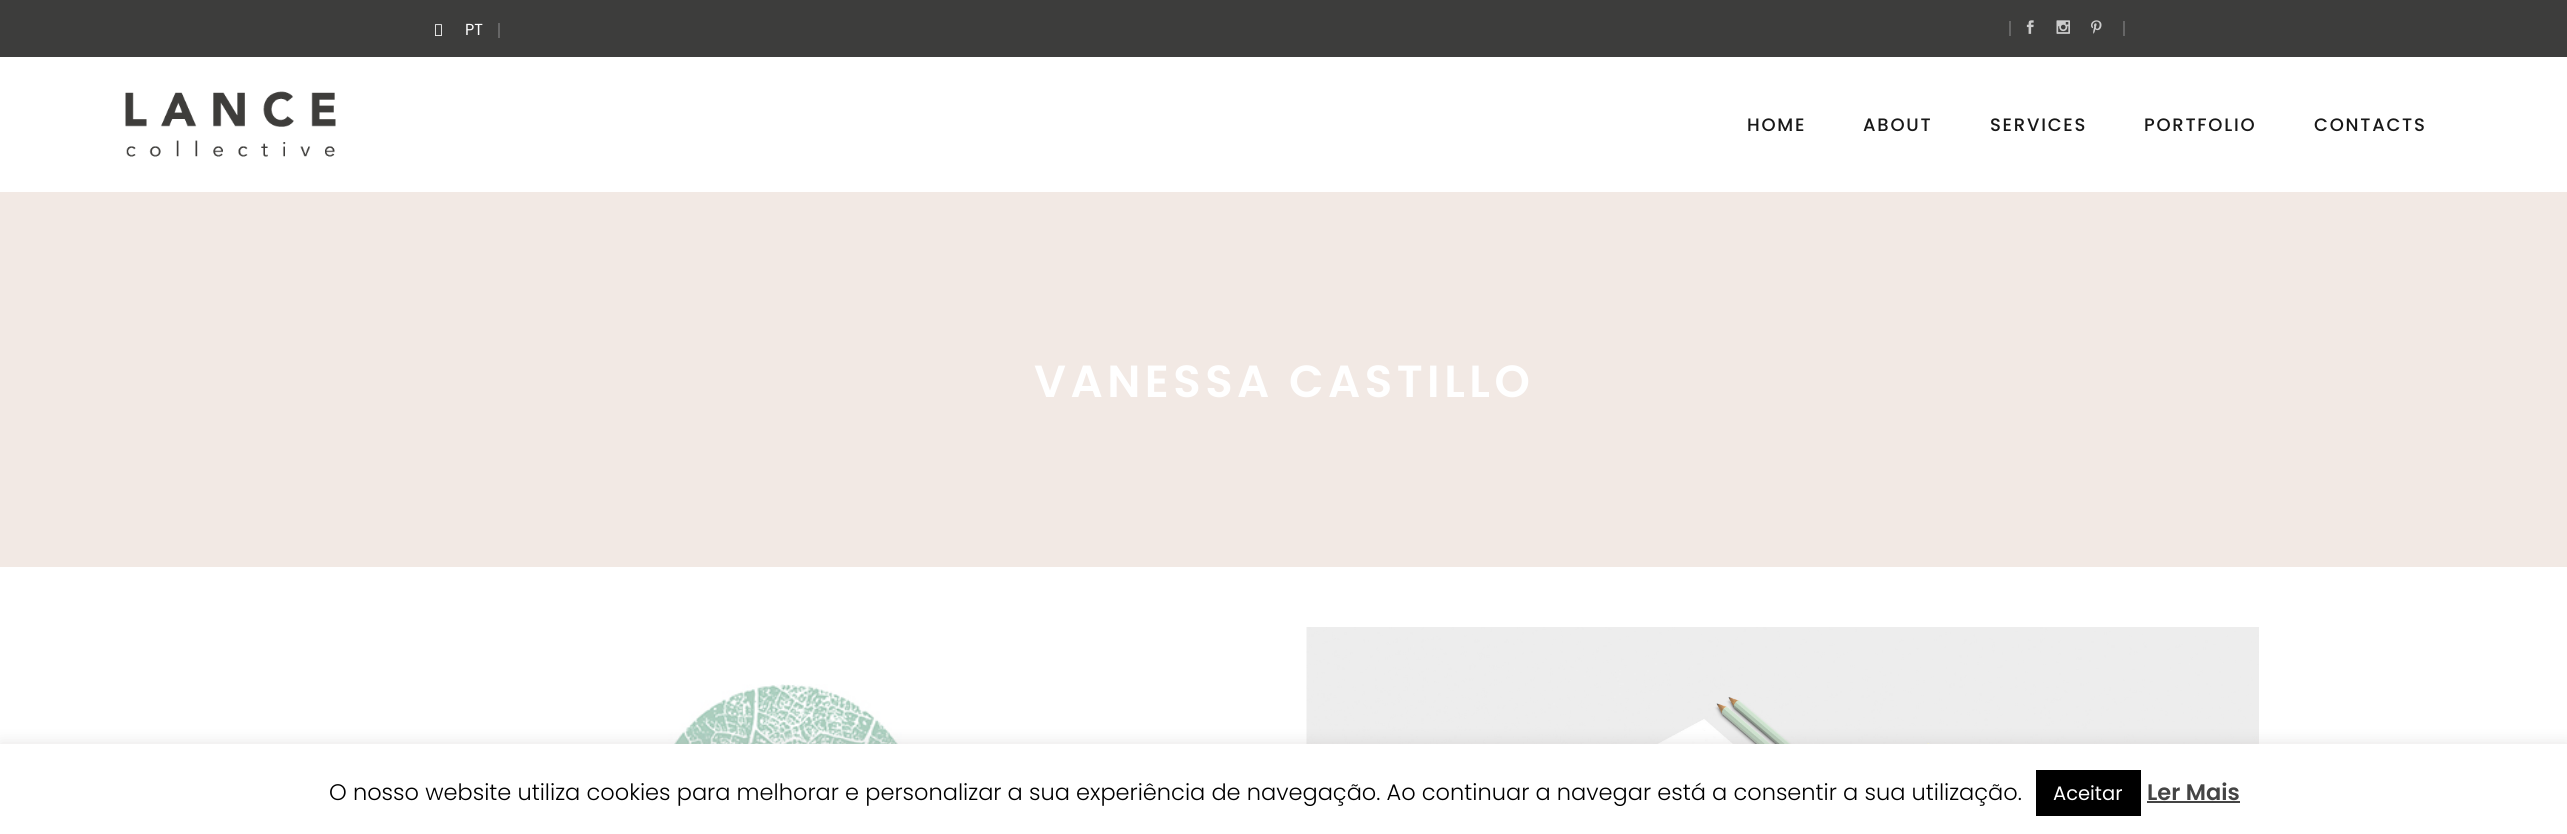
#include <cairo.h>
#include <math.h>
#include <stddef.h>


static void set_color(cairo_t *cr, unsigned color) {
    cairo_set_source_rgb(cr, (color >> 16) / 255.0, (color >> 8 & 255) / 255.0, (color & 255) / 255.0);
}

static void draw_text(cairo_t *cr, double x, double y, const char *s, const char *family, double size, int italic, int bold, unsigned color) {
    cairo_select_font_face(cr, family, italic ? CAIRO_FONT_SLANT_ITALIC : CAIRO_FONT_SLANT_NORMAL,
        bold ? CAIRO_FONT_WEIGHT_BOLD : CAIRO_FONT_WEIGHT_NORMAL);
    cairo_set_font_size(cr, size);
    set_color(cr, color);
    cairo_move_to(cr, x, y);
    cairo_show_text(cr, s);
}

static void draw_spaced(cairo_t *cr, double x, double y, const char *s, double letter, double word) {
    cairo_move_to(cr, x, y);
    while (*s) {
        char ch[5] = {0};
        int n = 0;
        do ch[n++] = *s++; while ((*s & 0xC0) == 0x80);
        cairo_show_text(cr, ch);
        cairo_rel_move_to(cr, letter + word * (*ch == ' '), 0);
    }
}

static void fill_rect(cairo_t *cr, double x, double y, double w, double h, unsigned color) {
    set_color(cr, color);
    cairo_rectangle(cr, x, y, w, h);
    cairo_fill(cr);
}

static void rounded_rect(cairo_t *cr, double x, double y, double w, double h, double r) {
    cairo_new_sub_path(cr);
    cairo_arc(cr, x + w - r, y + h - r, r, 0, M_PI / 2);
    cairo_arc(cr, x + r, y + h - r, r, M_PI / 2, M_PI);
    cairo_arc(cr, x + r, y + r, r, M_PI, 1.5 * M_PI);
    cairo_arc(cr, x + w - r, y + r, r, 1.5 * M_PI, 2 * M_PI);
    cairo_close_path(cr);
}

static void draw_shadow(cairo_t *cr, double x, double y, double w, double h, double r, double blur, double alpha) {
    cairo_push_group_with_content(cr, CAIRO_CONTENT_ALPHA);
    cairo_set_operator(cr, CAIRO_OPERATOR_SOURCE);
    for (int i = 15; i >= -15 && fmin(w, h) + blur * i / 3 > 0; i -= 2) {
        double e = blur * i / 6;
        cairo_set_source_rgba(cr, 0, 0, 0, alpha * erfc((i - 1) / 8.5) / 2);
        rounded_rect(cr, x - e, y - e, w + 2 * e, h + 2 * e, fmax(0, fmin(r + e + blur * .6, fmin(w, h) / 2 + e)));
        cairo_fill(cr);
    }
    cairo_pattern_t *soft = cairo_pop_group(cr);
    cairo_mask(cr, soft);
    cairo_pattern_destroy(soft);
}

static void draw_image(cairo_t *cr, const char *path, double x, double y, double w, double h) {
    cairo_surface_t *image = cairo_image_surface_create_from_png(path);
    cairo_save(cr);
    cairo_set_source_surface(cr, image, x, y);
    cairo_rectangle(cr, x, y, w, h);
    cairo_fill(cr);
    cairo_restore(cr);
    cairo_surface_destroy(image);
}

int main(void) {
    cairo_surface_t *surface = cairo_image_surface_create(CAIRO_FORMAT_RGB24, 2567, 834);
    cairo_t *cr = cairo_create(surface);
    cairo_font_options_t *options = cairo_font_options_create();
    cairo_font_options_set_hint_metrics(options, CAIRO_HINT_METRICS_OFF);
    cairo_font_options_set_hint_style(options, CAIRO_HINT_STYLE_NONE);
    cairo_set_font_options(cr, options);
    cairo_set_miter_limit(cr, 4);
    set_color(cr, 0xFFFFFF);
    cairo_paint(cr);
    fill_rect(cr, 0, 0, 2567, 57, 0x3D3D3C);
    draw_image(cr, "assets/img1.png", 435, 24, 7, 12);
    draw_text(cr, 465, 35, "PT", "Poppins", 16, 0, 0, 0xFFFFFF);
    fill_rect(cr, 498, 23, 2, 15, 0x666666);
    fill_rect(cr, 2009, 21, 2, 15, 0x666666);
    draw_image(cr, "assets/img2.png", 2026, 20, 8, 14);
    draw_image(cr, "assets/img3.png", 2056, 20, 14, 14);
    draw_image(cr, "assets/img4.png", 2091, 20, 11, 14);
    fill_rect(cr, 2123, 21, 2, 15, 0x666666);
    draw_image(cr, "assets/img5.png", 125, 91, 211, 66);
    cairo_select_font_face(cr, "Poppins Medium", CAIRO_FONT_SLANT_NORMAL, CAIRO_FONT_WEIGHT_NORMAL);
    cairo_set_font_size(cr, 18);
    set_color(cr, 0x181818);
    draw_spaced(cr, 1747, 131, "HOME", 1.75, 0);
    draw_spaced(cr, 1863, 131, "ABOUT", 1.75, 0);
    draw_spaced(cr, 1990, 131, "SERVICES", 1.75, 0);
    draw_spaced(cr, 2144, 131, "PORTFOLIO", 1.75, 0);
    draw_spaced(cr, 2314, 131, "CONTACTS", 1.75, 0);
    fill_rect(cr, 0, 192, 2567, 375, 0xF2E9E4);
    cairo_select_font_face(cr, "Poppins SemiBold", CAIRO_FONT_SLANT_NORMAL, CAIRO_FONT_WEIGHT_NORMAL);
    cairo_set_font_size(cr, 45);
    set_color(cr, 0xFFFFFF);
    draw_spaced(cr, 1034, 397, "VANESSA CASTILLO", 4.5, 0);
    draw_image(cr, "assets/img6.png", 650, 684, 272, 60);
    draw_image(cr, "assets/img7.png", 1306, 627, 953, 117);
    set_color(cr, 0xACABAB);
    draw_shadow(cr, 0, 743, 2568, 90, 0, 7.5, 0.3);
    fill_rect(cr, 0, 744, 2567, 90, 0xFFFFFF);
    draw_text(cr, 329, 800, "O nosso website utiliza cookies para melhorar e personalizar a sua experiência de navegação. Ao continuar a navegar está a consentir a sua utilização.", "Poppins Light", 22.5, 0, 0, 0x000000);
    fill_rect(cr, 2036, 770, 105, 46, 0x000000);
    draw_text(cr, 2053, 800, "Aceitar", "Poppins", 19.5, 0, 0, 0xFFFFFF);
    draw_text(cr, 2147, 800, "Ler Mais", "Poppins SemiBold", 22.5, 0, 0, 0x444444);
    fill_rect(cr, 2147, 801, 93, 2, 0x444444);
    cairo_surface_write_to_png(surface, "output.png");
    cairo_font_options_destroy(options);
    cairo_destroy(cr);
    cairo_surface_destroy(surface);
    return 0;
}
